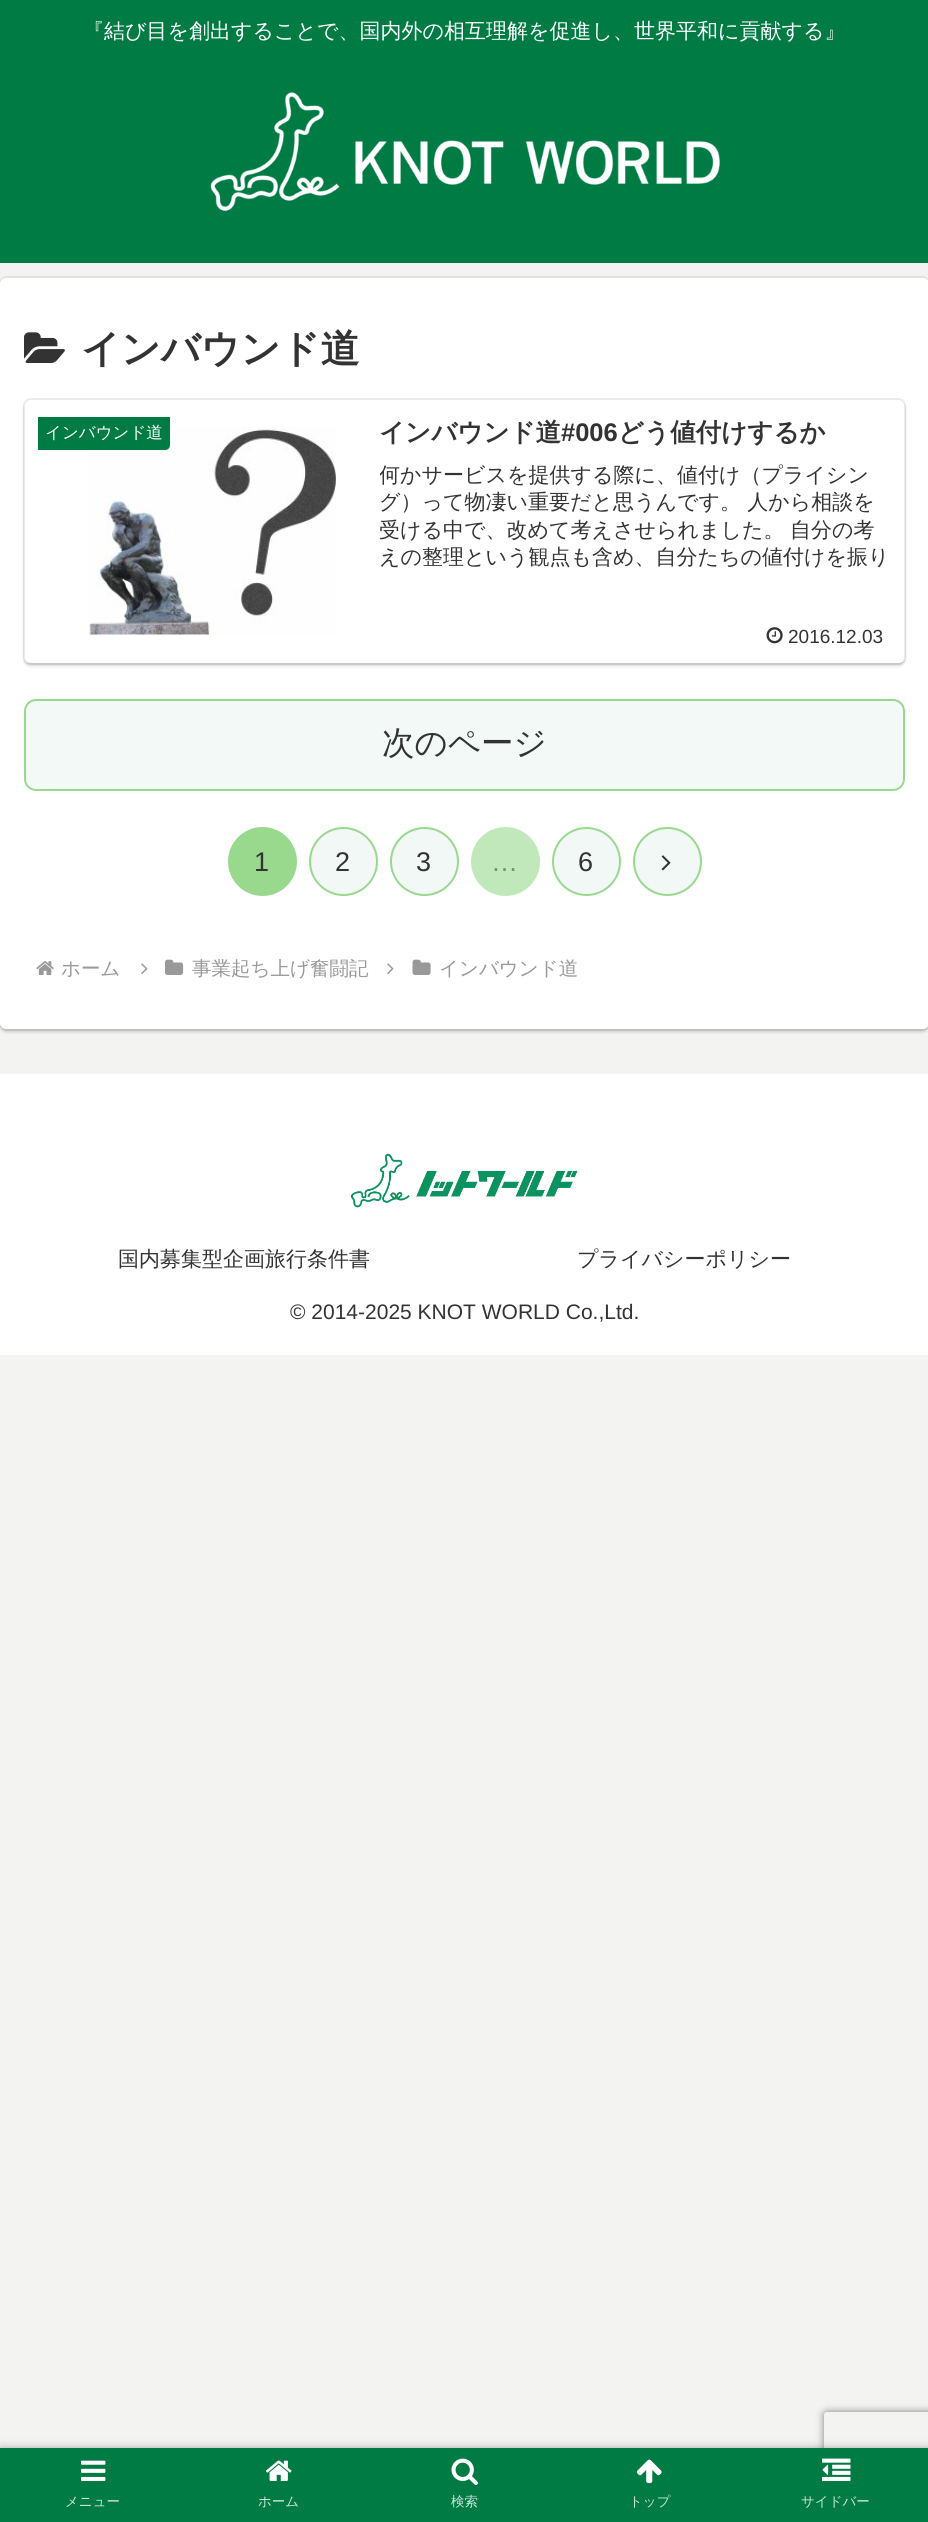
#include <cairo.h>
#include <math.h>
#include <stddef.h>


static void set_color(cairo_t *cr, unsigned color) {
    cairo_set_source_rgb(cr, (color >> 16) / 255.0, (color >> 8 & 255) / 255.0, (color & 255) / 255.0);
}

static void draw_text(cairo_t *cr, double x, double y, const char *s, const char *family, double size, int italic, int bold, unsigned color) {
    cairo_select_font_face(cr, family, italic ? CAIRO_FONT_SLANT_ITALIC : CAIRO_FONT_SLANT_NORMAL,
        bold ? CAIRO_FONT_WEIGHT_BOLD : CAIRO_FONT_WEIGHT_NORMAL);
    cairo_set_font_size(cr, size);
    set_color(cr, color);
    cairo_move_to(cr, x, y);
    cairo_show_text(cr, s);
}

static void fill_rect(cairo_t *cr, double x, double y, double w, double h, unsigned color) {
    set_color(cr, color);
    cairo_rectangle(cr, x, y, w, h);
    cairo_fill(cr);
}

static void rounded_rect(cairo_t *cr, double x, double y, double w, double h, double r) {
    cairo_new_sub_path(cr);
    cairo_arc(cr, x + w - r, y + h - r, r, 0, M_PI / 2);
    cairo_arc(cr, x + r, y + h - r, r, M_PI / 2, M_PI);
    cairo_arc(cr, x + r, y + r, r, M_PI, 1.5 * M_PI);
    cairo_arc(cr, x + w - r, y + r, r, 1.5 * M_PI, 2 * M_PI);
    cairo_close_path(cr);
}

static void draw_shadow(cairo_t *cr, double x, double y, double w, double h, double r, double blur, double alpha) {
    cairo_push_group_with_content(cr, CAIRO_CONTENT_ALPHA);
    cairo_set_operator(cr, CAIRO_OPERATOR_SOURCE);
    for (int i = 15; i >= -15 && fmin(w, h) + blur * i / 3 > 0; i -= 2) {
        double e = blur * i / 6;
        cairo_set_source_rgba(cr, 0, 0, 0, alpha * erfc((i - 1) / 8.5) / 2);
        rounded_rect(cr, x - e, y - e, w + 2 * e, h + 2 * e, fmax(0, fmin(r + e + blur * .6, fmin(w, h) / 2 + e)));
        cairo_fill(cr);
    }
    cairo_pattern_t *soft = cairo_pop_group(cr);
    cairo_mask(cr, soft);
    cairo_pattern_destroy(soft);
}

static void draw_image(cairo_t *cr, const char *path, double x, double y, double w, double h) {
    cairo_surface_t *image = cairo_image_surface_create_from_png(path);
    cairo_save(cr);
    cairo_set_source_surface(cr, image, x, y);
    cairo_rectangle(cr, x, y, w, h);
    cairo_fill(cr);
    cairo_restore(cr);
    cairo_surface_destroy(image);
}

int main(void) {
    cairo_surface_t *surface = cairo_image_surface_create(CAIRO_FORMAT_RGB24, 928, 2522);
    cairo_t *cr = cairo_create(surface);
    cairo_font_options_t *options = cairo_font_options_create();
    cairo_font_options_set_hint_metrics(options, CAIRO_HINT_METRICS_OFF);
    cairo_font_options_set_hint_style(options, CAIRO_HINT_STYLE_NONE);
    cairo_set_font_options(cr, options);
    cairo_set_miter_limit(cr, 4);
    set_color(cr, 0xF3F3F2);
    cairo_paint(cr);
    fill_rect(cr, 0, 0, 928, 263, 0x007B43);
    draw_text(cr, 83, 38, "『結び目を創出することで、国内外の相互理解を促進し、世界平和に貢献する』", "WenQuanYi Zen Hei Medium", 21, 0, 0, 0xFFFFFF);
    draw_image(cr, "assets/img1.png", 210, 92, 510, 119);
    rounded_rect(cr, 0, 277, 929, 753, 7);
    set_color(cr, 0xE0E0DF);
    cairo_stroke(cr);
    set_color(cr, 0x000000);
    draw_shadow(cr, 0, 281, 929, 751, 6, 1.5, 0.16);
    set_color(cr, 0xFFFFFF);
    rounded_rect(cr, 0, 278, 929, 751, 6);
    cairo_fill(cr);
    draw_image(cr, "assets/img2.png", 24, 332, 41, 31);
    draw_text(cr, 81, 362, "インバウンド道", "WenQuanYi Zen Hei", 39, 0, 1, 0x333333);
    rounded_rect(cr, 24, 399, 881, 265, 7);
    set_color(cr, 0xEBEBEB);
    cairo_stroke(cr);
    cairo_save(cr);
    cairo_set_fill_rule(cr, CAIRO_FILL_RULE_EVEN_ODD);
    cairo_new_path(cr);
    cairo_move_to(cr, 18, 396);
    cairo_line_to(cr, 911, 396);
    cairo_line_to(cr, 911, 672);
    cairo_line_to(cr, 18, 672);
    cairo_close_path(cr);
    cairo_move_to(cr, 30, 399);
    cairo_line_to(cr, 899, 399);
    cairo_curve_to(cr, 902.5, 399, 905, 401.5, 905, 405);
    cairo_line_to(cr, 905, 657);
    cairo_curve_to(cr, 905, 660.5, 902.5, 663, 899, 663);
    cairo_line_to(cr, 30, 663);
    cairo_curve_to(cr, 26.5, 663, 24, 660.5, 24, 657);
    cairo_line_to(cr, 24, 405);
    cairo_curve_to(cr, 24, 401.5, 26.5, 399, 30, 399);
    cairo_close_path(cr);
    cairo_clip(cr);
    set_color(cr, 0x000000);
    draw_shadow(cr, 24, 402, 881, 264, 6, 1.5, 0.16);
    cairo_restore(cr);
    draw_image(cr, "assets/img3.png", 89, 427, 247, 208);
    set_color(cr, 0x007B43);
    cairo_new_path(cr);
    cairo_move_to(cr, 38, 417);
    cairo_line_to(cr, 170, 417);
    cairo_line_to(cr, 170, 445);
    cairo_curve_to(cr, 170, 448, 168, 450, 165, 450);
    cairo_line_to(cr, 38, 450);
    cairo_close_path(cr);
    cairo_fill(cr);
    draw_text(cr, 45, 438, "インバウンド道", "WenQuanYi Zen Hei Medium", 16.5, 0, 0, 0xFFFFFF);
    draw_text(cr, 379, 441, "インバウンド道", "WenQuanYi Zen Hei", 25.5, 0, 1, 0x333333);
    draw_text(cr, 561, 441, "#006", "Liberation Sans", 25.5, 0, 1, 0x333333);
    draw_text(cr, 618, 441, "どう値付けするか", "WenQuanYi Zen Hei", 25.5, 0, 1, 0x333333);
    cairo_save(cr);
    cairo_rectangle(cr, 380, 461, 511, 109);
    cairo_clip(cr);
    draw_text(cr, 379, 482, "何かサービスを提供する際に、値付け（プライシン", "WenQuanYi Zen Hei Medium", 21, 0, 0, 0x333333);
    cairo_restore(cr);
    draw_text(cr, 379, 509, "グ）って物凄い重要だと思うんです。 人から相談を", "WenQuanYi Zen Hei Medium", 21, 0, 0, 0x333333);
    draw_text(cr, 379, 537, "受ける中で、改めて考えさせられました。", "WenQuanYi Zen Hei Medium", 21, 0, 0, 0x333333);
    draw_text(cr, 790, 537, "自分の考", "WenQuanYi Zen Hei Medium", 21, 0, 0, 0x333333);
    draw_text(cr, 379, 564, "えの整理という観点も含め、自分たちの値付けを振り", "WenQuanYi Zen Hei Medium", 21, 0, 0, 0x333333);
    draw_image(cr, "assets/img4.png", 766, 627, 17, 17);
    draw_text(cr, 788, 643, "2016.12.03", "Liberation Sans", 19, 0, 0, 0x333333);
    set_color(cr, 0xF2F9F6);
    rounded_rect(cr, 25, 700, 879, 90, 11);
    cairo_fill_preserve(cr);
    set_color(cr, 0x98D98E);
    cairo_stroke(cr);
    draw_text(cr, 382, 754, "次のページ", "WenQuanYi Zen Hei Medium", 32.5, 0, 0, 0x333333);
    set_color(cr, 0x98D98E);
    cairo_new_path(cr);
    cairo_arc(cr, 262.5, 861.5, 33.5, 0, 2 * M_PI);
    cairo_fill_preserve(cr);
    cairo_stroke(cr);
    draw_text(cr, 254, 871, "1", "Liberation Sans", 27, 0, 0, 0x333333);
    set_color(cr, 0xF2F8F6);
    cairo_new_path(cr);
    cairo_arc(cr, 343.5, 861.5, 33.5, 0, 2 * M_PI);
    cairo_fill_preserve(cr);
    set_color(cr, 0x98D98E);
    cairo_stroke(cr);
    draw_text(cr, 335, 871, "2", "Liberation Sans", 27, 0, 0, 0x333333);
    set_color(cr, 0xF2F8F6);
    cairo_new_path(cr);
    cairo_arc(cr, 424.5, 861.5, 33.5, 0, 2 * M_PI);
    cairo_fill_preserve(cr);
    set_color(cr, 0x98D98E);
    cairo_stroke(cr);
    draw_text(cr, 416, 871, "3", "Liberation Sans", 27, 0, 0, 0x333333);
    set_color(cr, 0xC1E8BB);
    cairo_new_path(cr);
    cairo_arc(cr, 505.5, 861.5, 33.5, 0, 2 * M_PI);
    cairo_fill_preserve(cr);
    cairo_stroke(cr);
    draw_text(cr, 491, 871, "…", "Liberation Sans", 27, 0, 0, 0x858585);
    set_color(cr, 0xF2F8F6);
    cairo_new_path(cr);
    cairo_arc(cr, 586.5, 861.5, 33.5, 0, 2 * M_PI);
    cairo_fill_preserve(cr);
    set_color(cr, 0x98D98E);
    cairo_stroke(cr);
    draw_text(cr, 578, 871, "6", "Liberation Sans", 27, 0, 0, 0x333333);
    set_color(cr, 0xF2F8F6);
    cairo_new_path(cr);
    cairo_arc(cr, 667.5, 861.5, 33.5, 0, 2 * M_PI);
    cairo_fill_preserve(cr);
    set_color(cr, 0x98D98E);
    cairo_stroke(cr);
    draw_image(cr, "assets/img5.png", 661, 855, 10, 16);
    draw_image(cr, "assets/img6.png", 36, 961, 18, 14);
    draw_text(cr, 61, 975, "ホーム", "WenQuanYi Zen Hei Medium", 19.5, 0, 0, 0x999999);
    draw_image(cr, "assets/img7.png", 141, 963, 7, 11);
    draw_image(cr, "assets/img8.png", 165, 959, 19, 16);
    draw_text(cr, 192, 975, "事業起ち上げ奮闘記", "WenQuanYi Zen Hei Medium", 19.5, 0, 0, 0x999999);
    draw_image(cr, "assets/img7.png", 387, 963, 7, 11);
    draw_image(cr, "assets/img9.png", 412, 959, 19, 16);
    draw_text(cr, 439, 975, "インバウンド道", "WenQuanYi Zen Hei Medium", 19.5, 0, 0, 0x999999);
    fill_rect(cr, 0, 1074, 928, 281, 0xFFFFFF);
    draw_image(cr, "assets/img10.png", 350, 1153, 228, 55);
    draw_text(cr, 118, 1266, "国内募集型企画旅行条件書", "WenQuanYi Zen Hei Medium", 21, 0, 0, 0x333333);
    draw_text(cr, 577, 1266, "プライバシーポリシー", "WenQuanYi Zen Hei Medium", 21, 0, 0, 0x333333);
    draw_text(cr, 290, 1319, "© 2014-2025 KNOT WORLD Co.,Ltd.", "Liberation Sans", 21, 0, 0, 0x333333);
    set_color(cr, 0xA9A9A9);
    draw_shadow(cr, 0, 2448, 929, 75, 0, 4, 1);
    cairo_save(cr);
    cairo_set_fill_rule(cr, CAIRO_FILL_RULE_EVEN_ODD);
    cairo_new_path(cr);
    cairo_move_to(cr, 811, 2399);
    cairo_line_to(cr, 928, 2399);
    cairo_line_to(cr, 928, 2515);
    cairo_line_to(cr, 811, 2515);
    cairo_close_path(cr);
    cairo_move_to(cr, 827, 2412);
    cairo_line_to(cr, 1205, 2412);
    cairo_curve_to(cr, 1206.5, 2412, 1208, 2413.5, 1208, 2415);
    cairo_line_to(cr, 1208, 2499);
    cairo_curve_to(cr, 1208, 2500.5, 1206.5, 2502, 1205, 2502);
    cairo_line_to(cr, 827, 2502);
    cairo_curve_to(cr, 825.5, 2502, 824, 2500.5, 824, 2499);
    cairo_line_to(cr, 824, 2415);
    cairo_curve_to(cr, 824, 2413.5, 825.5, 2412, 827, 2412);
    cairo_close_path(cr);
    cairo_clip(cr);
    set_color(cr, 0x808080);
    draw_shadow(cr, 824, 2412, 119, 90, 3, 4, 1);
    cairo_restore(cr);
    fill_rect(cr, 0, 2448, 928, 74, 0x007B43);
    draw_image(cr, "assets/img11.png", 81, 2460, 25, 21);
    draw_text(cr, 65, 2506, "メニュー", "WenQuanYi Zen Hei Medium", 13.5, 0, 0, 0xCCE5D9);
    draw_image(cr, "assets/img12.png", 266, 2460, 26, 21);
    draw_text(cr, 258, 2506, "ホーム", "WenQuanYi Zen Hei Medium", 13.5, 0, 0, 0xCCE5D9);
    draw_image(cr, "assets/img13.png", 451, 2458, 27, 27);
    draw_text(cr, 451, 2506, "検索", "WenQuanYi Zen Hei Medium", 13.5, 0, 0, 0xCCE5D9);
    draw_image(cr, "assets/img14.png", 636, 2459, 26, 25);
    draw_text(cr, 629, 2506, "トップ", "WenQuanYi Zen Hei Medium", 13.5, 0, 0, 0xCCE5D9);
    draw_image(cr, "assets/img15.png", 822, 2458, 29, 23);
    draw_text(cr, 801, 2506, "サイドバー", "WenQuanYi Zen Hei Medium", 13.5, 0, 0, 0xCCE5D9);
    cairo_surface_write_to_png(surface, "output.png");
    cairo_font_options_destroy(options);
    cairo_destroy(cr);
    cairo_surface_destroy(surface);
    return 0;
}
